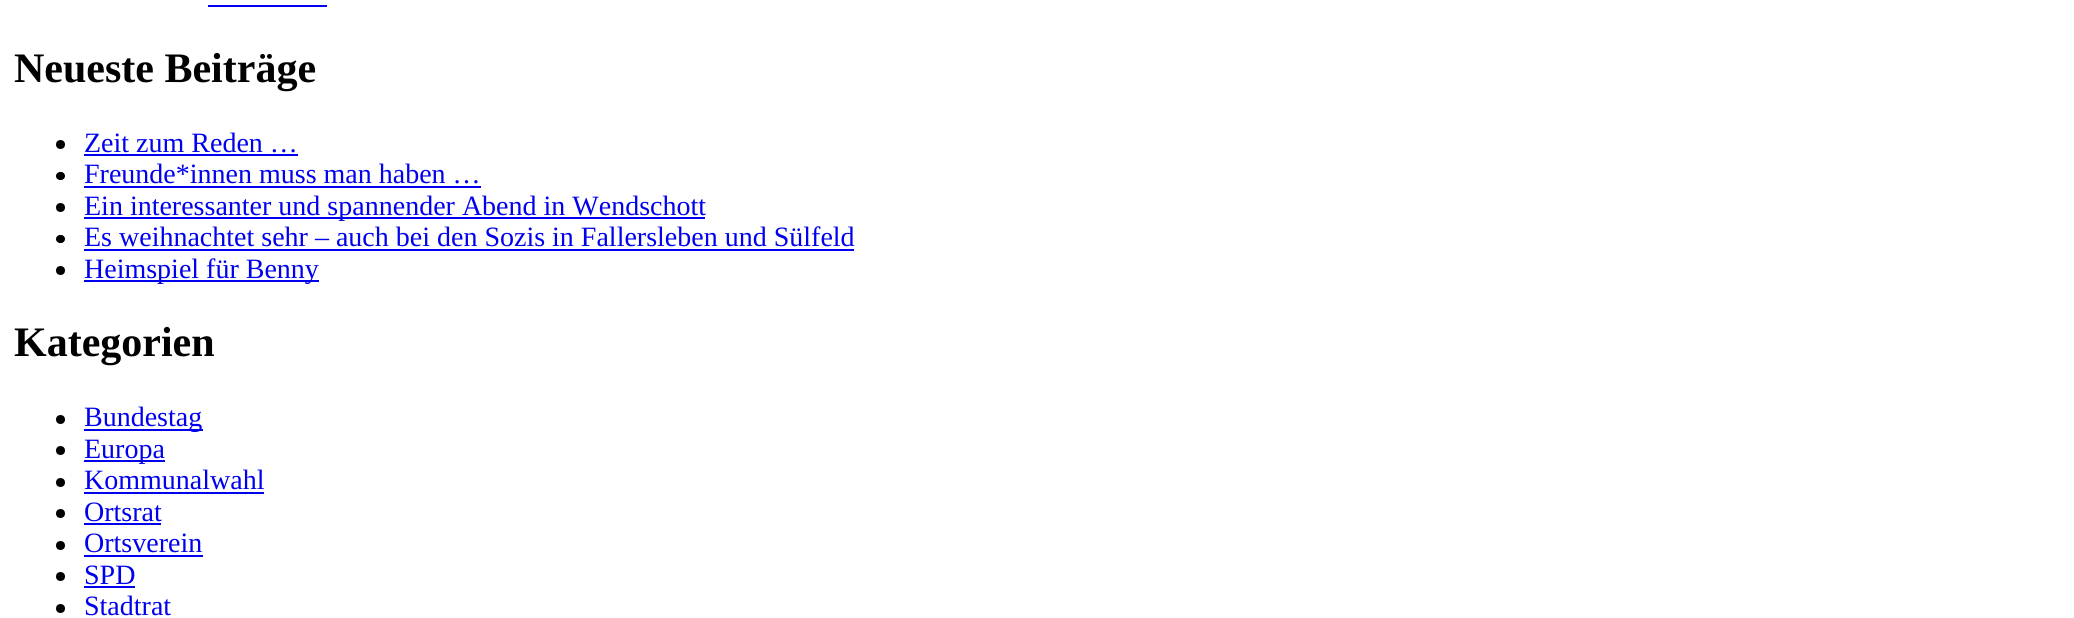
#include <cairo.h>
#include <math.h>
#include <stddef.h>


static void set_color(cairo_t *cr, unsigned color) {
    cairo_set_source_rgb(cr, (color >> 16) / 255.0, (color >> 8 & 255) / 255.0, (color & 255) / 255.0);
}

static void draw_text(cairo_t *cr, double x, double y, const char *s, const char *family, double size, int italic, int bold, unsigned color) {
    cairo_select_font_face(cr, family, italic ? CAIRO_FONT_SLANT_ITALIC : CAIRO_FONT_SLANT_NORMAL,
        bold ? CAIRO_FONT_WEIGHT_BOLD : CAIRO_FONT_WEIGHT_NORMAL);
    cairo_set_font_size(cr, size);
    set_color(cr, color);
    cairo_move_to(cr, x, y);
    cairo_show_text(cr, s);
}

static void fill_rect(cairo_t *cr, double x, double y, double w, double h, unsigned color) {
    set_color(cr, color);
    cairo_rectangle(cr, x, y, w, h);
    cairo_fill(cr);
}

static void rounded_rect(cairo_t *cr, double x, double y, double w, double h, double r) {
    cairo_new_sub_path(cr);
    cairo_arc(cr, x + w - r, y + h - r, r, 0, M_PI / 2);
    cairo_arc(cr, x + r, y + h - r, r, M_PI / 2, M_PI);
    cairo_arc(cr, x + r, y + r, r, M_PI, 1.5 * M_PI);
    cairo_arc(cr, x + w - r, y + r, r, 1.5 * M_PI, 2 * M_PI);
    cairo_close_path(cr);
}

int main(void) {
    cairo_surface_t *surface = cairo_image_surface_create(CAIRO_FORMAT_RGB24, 2074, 618);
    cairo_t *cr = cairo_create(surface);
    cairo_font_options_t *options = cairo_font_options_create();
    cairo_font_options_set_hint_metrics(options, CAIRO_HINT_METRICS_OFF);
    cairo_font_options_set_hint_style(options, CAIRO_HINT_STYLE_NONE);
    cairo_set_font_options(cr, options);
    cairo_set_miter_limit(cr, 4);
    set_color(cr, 0xFFFFFF);
    cairo_paint(cr);
    fill_rect(cr, 208, 5, 119, 2, 0x0000EE);
    draw_text(cr, 14, 82, "Neueste Beiträge", "Liberation Serif", 42, 0, 1, 0x000000);
    cairo_new_path(cr);
    cairo_arc(cr, 60.5, 144.5, 4.5, 0, 2 * M_PI);
    cairo_fill(cr);
    draw_text(cr, 84, 152, "Zeit zum Reden …", "Liberation Serif", 28, 0, 0, 0x0000EE);
    fill_rect(cr, 84, 154, 214, 2, 0x0000EE);
    set_color(cr, 0x000000);
    rounded_rect(cr, 56, 172, 9, 8, 4);
    cairo_fill(cr);
    draw_text(cr, 84, 183, "Freunde*innen muss man haben …", "Liberation Serif", 28, 0, 0, 0x0000EE);
    fill_rect(cr, 84, 186, 397, 2, 0x0000EE);
    set_color(cr, 0x000000);
    cairo_new_path(cr);
    cairo_arc(cr, 60.5, 207.5, 4.5, 0, 2 * M_PI);
    cairo_fill(cr);
    fill_rect(cr, 84, 217, 621, 2, 0x0000EE);
    draw_text(cr, 84, 215, "Ein interessanter und spannender Abend in Wendschott", "Liberation Serif", 28, 0, 0, 0x0000EE);
    set_color(cr, 0x000000);
    rounded_rect(cr, 56, 235, 9, 8, 4);
    cairo_fill(cr);
    draw_text(cr, 84, 246, "Es weihnachtet sehr – auch bei den Sozis in Fallersleben und Sülfeld", "Liberation Serif", 28, 0, 0, 0x0000EE);
    fill_rect(cr, 84, 249, 770, 2, 0x0000EE);
    set_color(cr, 0x000000);
    cairo_new_path(cr);
    cairo_arc(cr, 60.5, 270.5, 4.5, 0, 2 * M_PI);
    cairo_fill(cr);
    fill_rect(cr, 84, 280, 235, 2, 0x0000EE);
    draw_text(cr, 84, 278, "Heimspiel für Benny", "Liberation Serif", 28, 0, 0, 0x0000EE);
    draw_text(cr, 14, 356, "Kategorien", "Liberation Serif", 42, 0, 1, 0x000000);
    cairo_new_path(cr);
    cairo_arc(cr, 60.5, 419.5, 4.5, 0, 2 * M_PI);
    cairo_fill(cr);
    fill_rect(cr, 84, 429, 119, 2, 0x0000EE);
    draw_text(cr, 84, 426, "Bundestag", "Liberation Serif", 28, 0, 0, 0x0000EE);
    set_color(cr, 0x000000);
    cairo_new_path(cr);
    cairo_arc(cr, 60.5, 450.5, 4.5, 0, 2 * M_PI);
    cairo_fill(cr);
    fill_rect(cr, 84, 460, 81, 2, 0x0000EE);
    draw_text(cr, 84, 458, "Europa", "Liberation Serif", 28, 0, 0, 0x0000EE);
    set_color(cr, 0x000000);
    cairo_new_path(cr);
    cairo_arc(cr, 60.5, 482.5, 4.5, 0, 2 * M_PI);
    cairo_fill(cr);
    draw_text(cr, 84, 489, "Kommunalwahl", "Liberation Serif", 28, 0, 0, 0x0000EE);
    fill_rect(cr, 84, 492, 180, 2, 0x0000EE);
    set_color(cr, 0x000000);
    cairo_new_path(cr);
    cairo_arc(cr, 60.5, 513.5, 4.5, 0, 2 * M_PI);
    cairo_fill(cr);
    draw_text(cr, 84, 521, "Ortsrat", "Liberation Serif", 28, 0, 0, 0x0000EE);
    fill_rect(cr, 84, 523, 77, 2, 0x0000EE);
    set_color(cr, 0x000000);
    cairo_new_path(cr);
    cairo_arc(cr, 60.5, 545.5, 4.5, 0, 2 * M_PI);
    cairo_fill(cr);
    draw_text(cr, 84, 552, "Ortsverein", "Liberation Serif", 28, 0, 0, 0x0000EE);
    fill_rect(cr, 84, 555, 119, 2, 0x0000EE);
    set_color(cr, 0x000000);
    cairo_new_path(cr);
    cairo_arc(cr, 60.5, 576.5, 4.5, 0, 2 * M_PI);
    cairo_fill(cr);
    draw_text(cr, 84, 584, "SPD", "Liberation Serif", 28, 0, 0, 0x0000EE);
    fill_rect(cr, 84, 586, 51, 2, 0x0000EE);
    set_color(cr, 0x000000);
    cairo_new_path(cr);
    cairo_arc(cr, 60.5, 608.5, 4.5, 0, 2 * M_PI);
    cairo_fill(cr);
    draw_text(cr, 84, 615, "Stadtrat", "Liberation Serif", 28, 0, 0, 0x0000EE);
    cairo_surface_write_to_png(surface, "output.png");
    cairo_font_options_destroy(options);
    cairo_destroy(cr);
    cairo_surface_destroy(surface);
    return 0;
}
